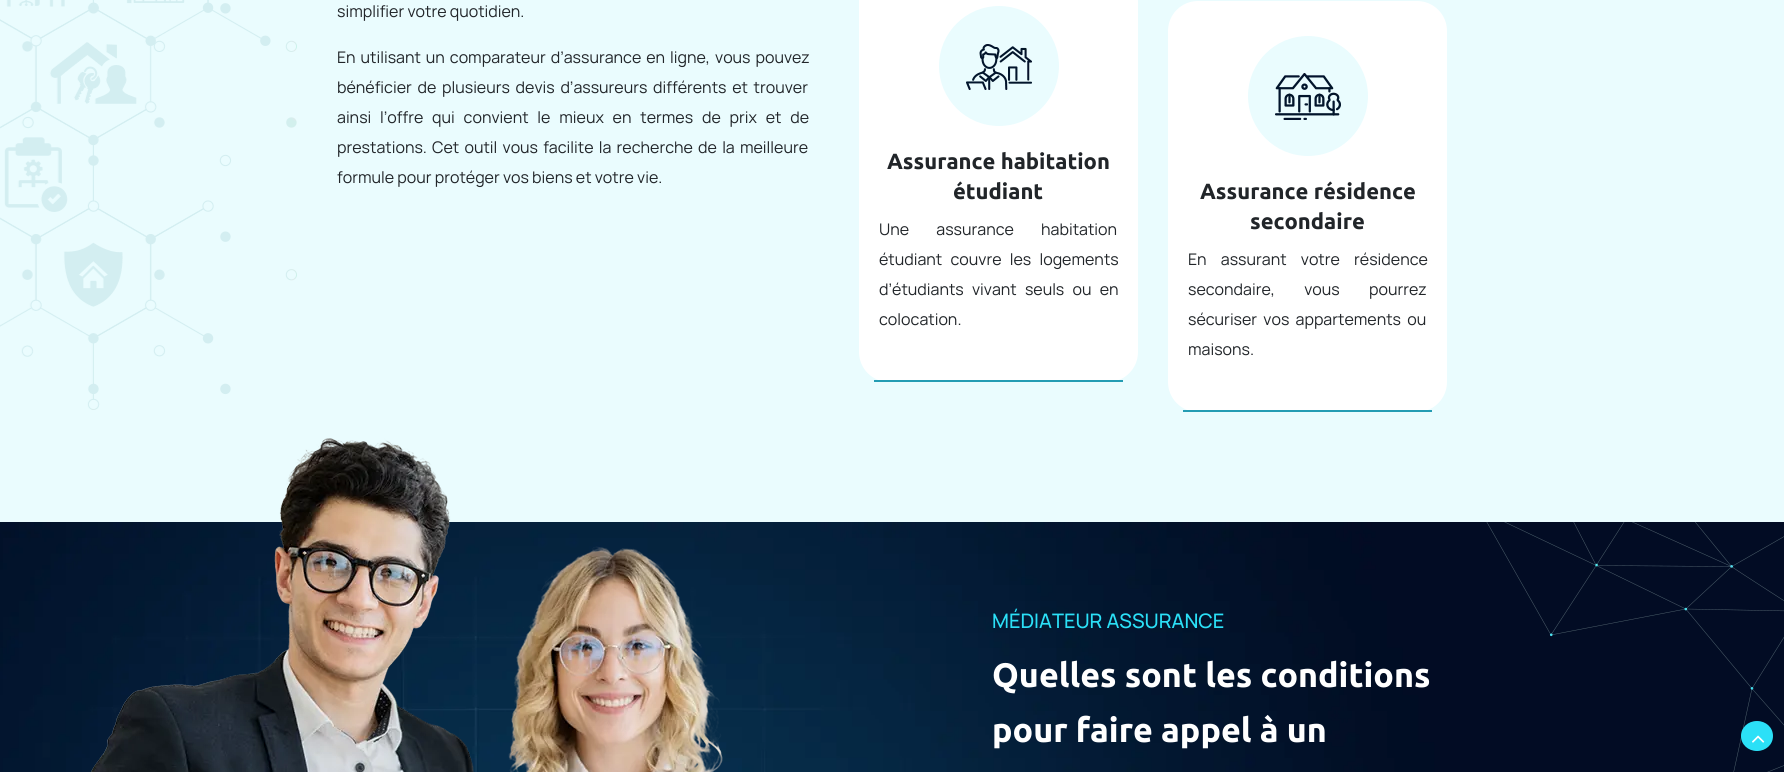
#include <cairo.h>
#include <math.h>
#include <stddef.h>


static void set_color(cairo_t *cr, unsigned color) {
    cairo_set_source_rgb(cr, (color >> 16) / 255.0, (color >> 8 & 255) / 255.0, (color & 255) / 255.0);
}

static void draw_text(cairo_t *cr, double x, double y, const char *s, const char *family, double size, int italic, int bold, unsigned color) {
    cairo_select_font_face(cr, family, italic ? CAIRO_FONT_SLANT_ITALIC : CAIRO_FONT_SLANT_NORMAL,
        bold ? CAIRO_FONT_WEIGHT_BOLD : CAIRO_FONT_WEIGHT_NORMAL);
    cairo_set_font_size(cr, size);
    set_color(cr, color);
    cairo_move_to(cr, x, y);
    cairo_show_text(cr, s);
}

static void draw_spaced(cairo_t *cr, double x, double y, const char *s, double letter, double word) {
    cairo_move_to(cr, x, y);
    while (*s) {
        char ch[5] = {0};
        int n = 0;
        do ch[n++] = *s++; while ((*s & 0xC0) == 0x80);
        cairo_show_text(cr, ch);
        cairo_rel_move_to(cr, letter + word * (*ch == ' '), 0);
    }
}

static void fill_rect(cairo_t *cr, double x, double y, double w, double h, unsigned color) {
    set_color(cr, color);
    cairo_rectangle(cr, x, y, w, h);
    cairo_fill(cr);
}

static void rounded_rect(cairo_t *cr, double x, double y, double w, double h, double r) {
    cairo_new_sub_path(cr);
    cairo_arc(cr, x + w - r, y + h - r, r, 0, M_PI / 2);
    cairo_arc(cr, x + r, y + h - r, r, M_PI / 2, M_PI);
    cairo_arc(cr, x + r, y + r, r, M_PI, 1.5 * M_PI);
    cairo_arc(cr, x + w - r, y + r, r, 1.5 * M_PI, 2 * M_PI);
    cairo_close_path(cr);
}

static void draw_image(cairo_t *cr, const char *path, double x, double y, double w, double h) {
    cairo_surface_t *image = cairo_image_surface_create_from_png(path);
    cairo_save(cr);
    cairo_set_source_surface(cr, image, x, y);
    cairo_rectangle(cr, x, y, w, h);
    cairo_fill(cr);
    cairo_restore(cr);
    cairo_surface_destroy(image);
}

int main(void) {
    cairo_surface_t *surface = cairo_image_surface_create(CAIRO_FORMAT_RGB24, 1784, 772);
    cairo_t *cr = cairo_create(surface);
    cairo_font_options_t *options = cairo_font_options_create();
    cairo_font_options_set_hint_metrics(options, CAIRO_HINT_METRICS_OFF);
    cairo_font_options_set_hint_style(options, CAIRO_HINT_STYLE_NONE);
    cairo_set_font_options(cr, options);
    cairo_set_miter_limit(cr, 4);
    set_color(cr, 0xEAFCFE);
    cairo_paint(cr);
    draw_image(cr, "assets/img1.png", 0, 0, 297, 410);
    draw_text(cr, 337, 17, "simplifier votre quotidien.", "Manrope", 16, 0, 0, 0x212529);
    draw_spaced(cr, 337, 63, "En utilisant un comparateur d’assurance en ligne, vous pouvez", 0, 1.75);
    draw_spaced(cr, 337, 93, "bénéficier de plusieurs devis d’assureurs différents et trouver", 0, 2.5);
    draw_spaced(cr, 337, 123, "ainsi l’offre qui convient le mieux en termes de prix et de", 0, 5.6);
    draw_spaced(cr, 337, 153, "prestations. Cet outil vous facilite la recherche de la meilleure", 0, 2);
    draw_text(cr, 337, 183, "formule pour protéger vos biens et votre vie.", "Manrope", 16, 0, 0, 0x212529);
    set_color(cr, 0xFFFFFF);
    rounded_rect(cr, 859, -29, 279, 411, 30);
    cairo_fill(cr);
    fill_rect(cr, 874, 380, 249, 2, 0x249CB3);
    set_color(cr, 0xEAFCFE);
    cairo_arc(cr, 999, 66, 60, 0, 2 * M_PI);
    cairo_fill(cr);
    draw_image(cr, "assets/img2.png", 966, 44, 66, 46);
    draw_text(cr, 887, 169, "Assurance habitation", "Ubuntu", 22, 0, 1, 0x212529);
    draw_text(cr, 953, 199, "étudiant", "Ubuntu", 22, 0, 1, 0x212529);
    cairo_select_font_face(cr, "Manrope", CAIRO_FONT_SLANT_NORMAL, CAIRO_FONT_WEIGHT_NORMAL);
    cairo_set_font_size(cr, 16);
    draw_spaced(cr, 879, 235, "Une assurance habitation", 0, 24);
    draw_spaced(cr, 879, 265, "étudiant couvre les logements", 0, 5);
    draw_spaced(cr, 879, 295, "d’étudiants vivant seuls ou en", 0, 5);
    draw_text(cr, 879, 325, "colocation.", "Manrope", 16, 0, 0, 0x212529);
    set_color(cr, 0xFFFFFF);
    rounded_rect(cr, 1168, 1, 279, 411, 30);
    cairo_fill(cr);
    fill_rect(cr, 1183, 410, 249, 2, 0x249CB3);
    set_color(cr, 0xEAFCFE);
    cairo_arc(cr, 1308, 96, 60, 0, 2 * M_PI);
    cairo_fill(cr);
    draw_image(cr, "assets/img3.png", 1275, 73, 66, 47);
    draw_text(cr, 1200, 199, "Assurance résidence", "Ubuntu", 22, 0, 1, 0x212529);
    draw_text(cr, 1250, 229, "secondaire", "Ubuntu", 22, 0, 1, 0x212529);
    cairo_select_font_face(cr, "Manrope", CAIRO_FONT_SLANT_NORMAL, CAIRO_FONT_WEIGHT_NORMAL);
    cairo_set_font_size(cr, 16);
    draw_spaced(cr, 1188, 265, "En assurant votre résidence", 0, 11);
    draw_spaced(cr, 1188, 295, "secondaire, vous pourrez", 0, 26);
    draw_spaced(cr, 1188, 325, "sécuriser vos appartements ou", 0, 3);
    draw_text(cr, 1188, 355, "maisons.", "Manrope", 16, 0, 0, 0x212529);
    draw_image(cr, "assets/img4.png", 0, 522, 1784, 250);
    draw_image(cr, "assets/img5.png", 91, 438, 632, 334);
    draw_image(cr, "assets/img6.png", 1486, 522, 298, 250);
    draw_text(cr, 992, 628, "MÉDIATEUR ASSURANCE", "Manrope Medium", 20, 0, 0, 0x2BE0F7);
    draw_text(cr, 992, 687, "Quelles sont les conditions", "Ubuntu", 34, 0, 1, 0xFFFFFF);
    draw_text(cr, 992, 742, "pour faire appel à un", "Ubuntu", 34, 0, 1, 0xFFFFFF);
    set_color(cr, 0x2BE0F7);
    cairo_new_path(cr);
    cairo_move_to(cr, 1757, 721);
    cairo_curve_to(cr, 1766, 721, 1773, 727.5, 1773, 736);
    cairo_curve_to(cr, 1773, 744.5, 1766, 751, 1757, 751);
    cairo_curve_to(cr, 1748, 751, 1741, 744.5, 1741, 736);
    cairo_curve_to(cr, 1741, 727.5, 1748, 721, 1757, 721);
    cairo_close_path(cr);
    cairo_fill(cr);
    draw_image(cr, "assets/img7.png", 1752, 735, 13, 8);
    cairo_surface_write_to_png(surface, "output.png");
    cairo_font_options_destroy(options);
    cairo_destroy(cr);
    cairo_surface_destroy(surface);
    return 0;
}
